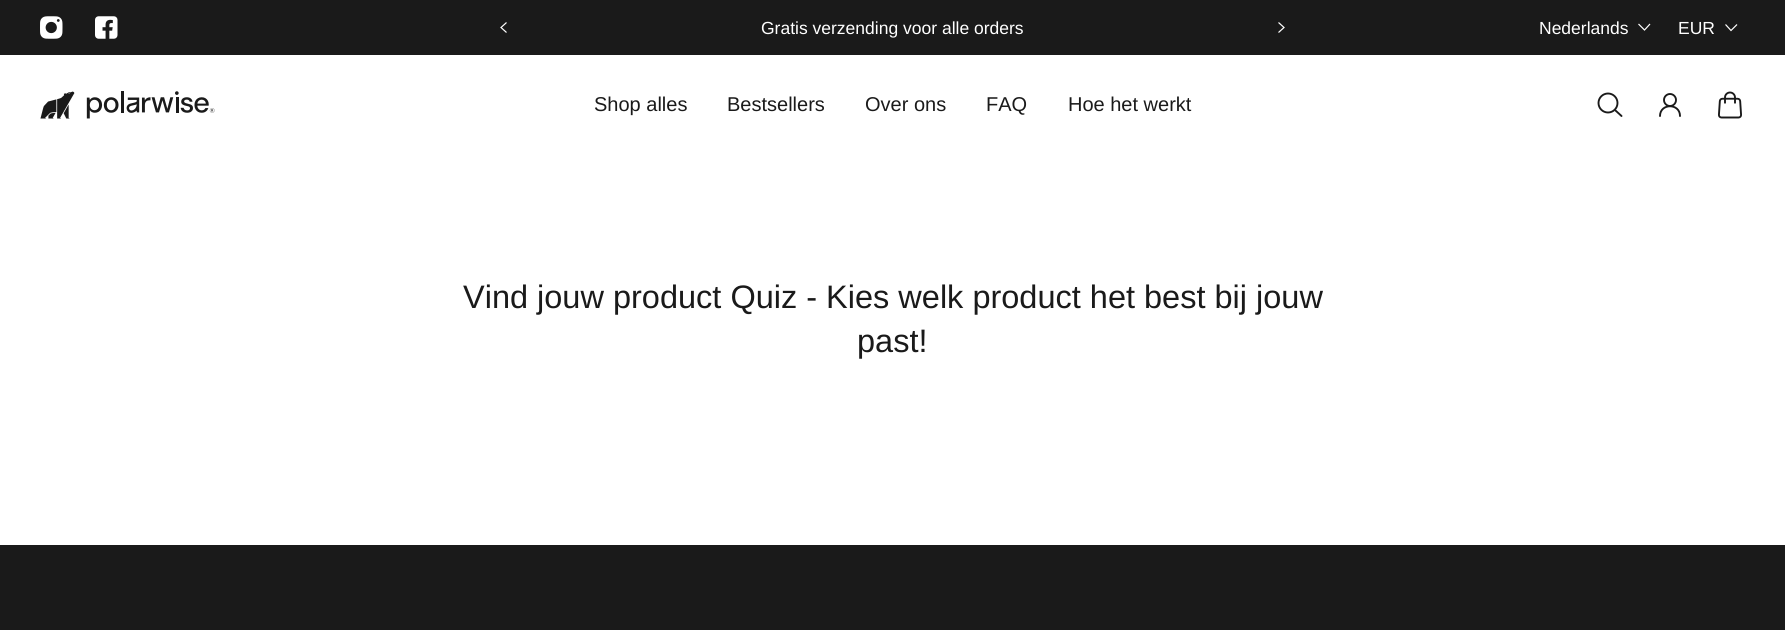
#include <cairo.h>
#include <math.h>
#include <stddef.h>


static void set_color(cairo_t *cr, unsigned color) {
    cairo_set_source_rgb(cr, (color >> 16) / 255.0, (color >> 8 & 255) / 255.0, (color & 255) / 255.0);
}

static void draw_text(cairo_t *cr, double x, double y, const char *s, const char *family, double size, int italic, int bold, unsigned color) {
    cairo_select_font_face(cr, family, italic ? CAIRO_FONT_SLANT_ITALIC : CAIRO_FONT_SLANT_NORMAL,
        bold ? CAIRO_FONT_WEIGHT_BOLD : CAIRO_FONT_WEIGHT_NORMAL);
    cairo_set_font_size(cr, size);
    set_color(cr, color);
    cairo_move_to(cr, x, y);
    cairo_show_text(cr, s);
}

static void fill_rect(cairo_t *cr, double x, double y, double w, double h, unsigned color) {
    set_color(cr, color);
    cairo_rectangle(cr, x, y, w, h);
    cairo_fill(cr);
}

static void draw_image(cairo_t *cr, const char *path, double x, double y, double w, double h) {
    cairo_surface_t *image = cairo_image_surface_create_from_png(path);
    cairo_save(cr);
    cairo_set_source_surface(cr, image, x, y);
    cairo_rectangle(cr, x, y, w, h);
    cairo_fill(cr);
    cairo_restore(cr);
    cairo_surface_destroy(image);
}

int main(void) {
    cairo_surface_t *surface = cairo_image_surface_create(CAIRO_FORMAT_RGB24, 1785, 630);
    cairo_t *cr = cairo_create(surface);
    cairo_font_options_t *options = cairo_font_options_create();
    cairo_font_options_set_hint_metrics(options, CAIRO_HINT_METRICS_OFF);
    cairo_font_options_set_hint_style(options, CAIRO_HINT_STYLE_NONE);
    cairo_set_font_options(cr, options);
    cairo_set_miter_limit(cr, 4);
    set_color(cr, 0xFFFFFF);
    cairo_paint(cr);
    fill_rect(cr, 0, 0, 1785, 55, 0x1A1A1A);
    draw_image(cr, "assets/img1.png", 40, 16, 23, 23);
    draw_image(cr, "assets/img2.png", 95, 16, 23, 23);
    cairo_new_path(cr);
    cairo_move_to(cr, 506.5, 22.5);
    cairo_line_to(cr, 501, 27.5);
    cairo_line_to(cr, 506.5, 32.5);
    set_color(cr, 0xFFFFFF);
    cairo_set_line_width(cr, 1.2);
    cairo_stroke(cr);
    draw_text(cr, 761, 34, "Gratis verzending voor alle orders", "Liberation Sans", 17.5, 0, 0, 0xFFFFFF);
    cairo_new_path(cr);
    cairo_move_to(cr, 1278.5, 22.5);
    cairo_line_to(cr, 1284, 27.5);
    cairo_line_to(cr, 1278.5, 32.5);
    cairo_stroke(cr);
    draw_text(cr, 1539, 34, "Nederlands", "Liberation Sans", 17.5, 0, 0, 0xFFFFFF);
    cairo_new_path(cr);
    cairo_move_to(cr, 1650, 24);
    cairo_line_to(cr, 1644.5, 30);
    cairo_line_to(cr, 1638.5, 24);
    cairo_stroke(cr);
    draw_text(cr, 1678, 34, "EUR", "Liberation Sans", 17.5, 0, 0, 0xFFFFFF);
    cairo_new_path(cr);
    cairo_move_to(cr, 1737, 24.5);
    cairo_line_to(cr, 1731, 30.5);
    cairo_line_to(cr, 1725.5, 24.5);
    cairo_stroke(cr);
    draw_image(cr, "assets/img3.png", 40, 91, 175, 28);
    draw_text(cr, 594, 111, "Shop alles", "Liberation Sans", 20, 0, 0, 0x1A1A1A);
    draw_text(cr, 727, 111, "Bestsellers", "Liberation Sans", 20, 0, 0, 0x1A1A1A);
    draw_text(cr, 865, 111, "Over ons", "Liberation Sans", 20, 0, 0, 0x1A1A1A);
    draw_text(cr, 986, 111, "FAQ", "Liberation Sans", 20, 0, 0, 0x1A1A1A);
    draw_text(cr, 1068, 111, "Hoe het werkt", "Liberation Sans", 20, 0, 0, 0x1A1A1A);
    cairo_new_path(cr);
    cairo_arc(cr, 1608, 103, 9.5, 0, 2 * M_PI);
    cairo_set_line_width(cr, 1.9);
    cairo_stroke(cr);
    cairo_new_path(cr);
    cairo_move_to(cr, 1615.5, 110.5);
    cairo_line_to(cr, 1621.5, 116);
    cairo_set_line_cap(cr, CAIRO_LINE_CAP_ROUND);
    cairo_set_line_join(cr, CAIRO_LINE_JOIN_ROUND);
    cairo_stroke(cr);
    cairo_arc(cr, 1670, 100, 6, 0, 2 * M_PI);
    cairo_set_line_cap(cr, CAIRO_LINE_CAP_BUTT);
    cairo_set_line_join(cr, CAIRO_LINE_JOIN_MITER);
    cairo_stroke(cr);
    cairo_new_path(cr);
    cairo_move_to(cr, 1680, 116);
    cairo_curve_to(cr, 1680, 103, 1660, 103, 1660, 116);
    cairo_set_line_cap(cr, CAIRO_LINE_CAP_ROUND);
    cairo_set_line_join(cr, CAIRO_LINE_JOIN_ROUND);
    cairo_stroke(cr);
    draw_image(cr, "assets/img4.png", 1718, 91, 24, 28);
    draw_text(cr, 463, 308, "Vind jouw product Quiz - Kies welk product het best bij jouw", "Liberation Sans", 32.5, 0, 0, 0x1A1A1A);
    draw_text(cr, 857, 352, "past!", "Liberation Sans", 32.5, 0, 0, 0x1A1A1A);
    fill_rect(cr, 0, 545, 1785, 85, 0x1A1A1A);
    cairo_surface_write_to_png(surface, "output.png");
    cairo_font_options_destroy(options);
    cairo_destroy(cr);
    cairo_surface_destroy(surface);
    return 0;
}
